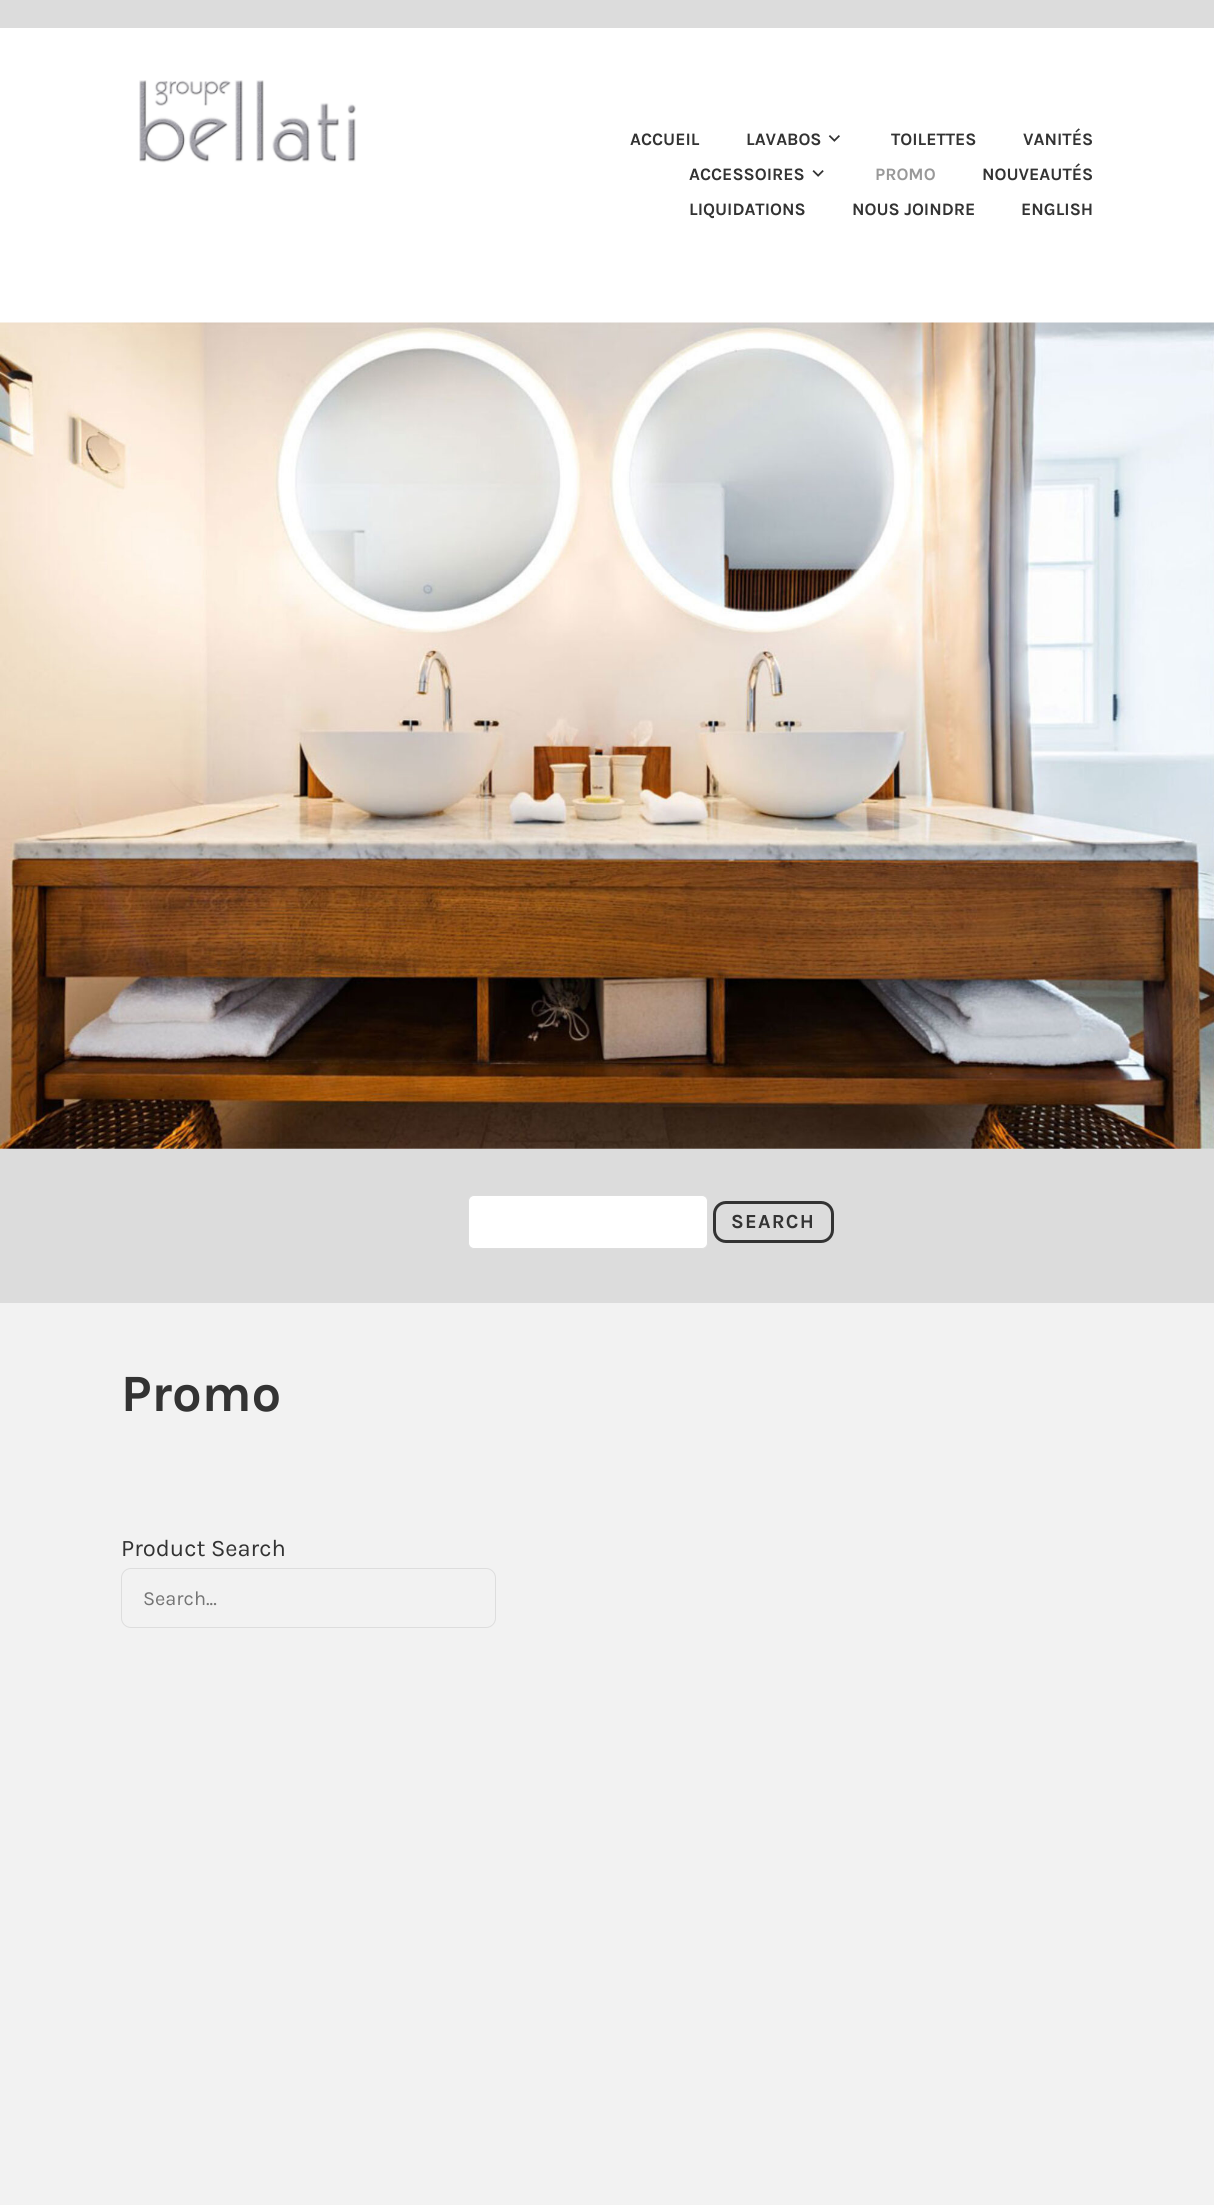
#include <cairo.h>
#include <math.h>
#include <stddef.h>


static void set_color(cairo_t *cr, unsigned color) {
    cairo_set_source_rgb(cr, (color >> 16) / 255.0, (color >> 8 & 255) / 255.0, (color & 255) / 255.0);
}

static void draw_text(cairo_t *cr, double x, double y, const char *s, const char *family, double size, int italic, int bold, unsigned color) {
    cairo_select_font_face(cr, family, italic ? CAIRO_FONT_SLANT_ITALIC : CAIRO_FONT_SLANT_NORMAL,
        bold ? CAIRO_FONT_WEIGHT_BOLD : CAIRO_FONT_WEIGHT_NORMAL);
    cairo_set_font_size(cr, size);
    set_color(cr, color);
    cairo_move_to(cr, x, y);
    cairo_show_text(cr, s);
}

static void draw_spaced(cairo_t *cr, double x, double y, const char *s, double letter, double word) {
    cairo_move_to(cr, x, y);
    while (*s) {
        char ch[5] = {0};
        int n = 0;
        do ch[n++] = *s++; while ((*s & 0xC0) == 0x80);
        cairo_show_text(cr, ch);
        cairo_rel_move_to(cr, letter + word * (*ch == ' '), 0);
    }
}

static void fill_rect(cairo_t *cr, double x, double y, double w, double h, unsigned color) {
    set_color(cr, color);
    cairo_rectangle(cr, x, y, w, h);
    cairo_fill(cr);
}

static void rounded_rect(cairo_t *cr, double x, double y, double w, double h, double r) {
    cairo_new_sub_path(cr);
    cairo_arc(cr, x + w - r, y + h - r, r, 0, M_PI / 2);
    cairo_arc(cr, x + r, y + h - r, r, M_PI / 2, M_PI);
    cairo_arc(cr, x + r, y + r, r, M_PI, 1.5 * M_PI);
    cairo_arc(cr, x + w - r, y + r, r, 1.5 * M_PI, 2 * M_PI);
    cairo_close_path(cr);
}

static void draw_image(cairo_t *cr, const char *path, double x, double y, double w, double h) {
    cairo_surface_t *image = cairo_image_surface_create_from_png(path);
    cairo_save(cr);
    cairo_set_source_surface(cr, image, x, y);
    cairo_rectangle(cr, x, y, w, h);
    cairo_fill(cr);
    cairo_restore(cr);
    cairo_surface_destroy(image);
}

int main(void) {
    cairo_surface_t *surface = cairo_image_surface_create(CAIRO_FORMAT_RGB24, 1214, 2205);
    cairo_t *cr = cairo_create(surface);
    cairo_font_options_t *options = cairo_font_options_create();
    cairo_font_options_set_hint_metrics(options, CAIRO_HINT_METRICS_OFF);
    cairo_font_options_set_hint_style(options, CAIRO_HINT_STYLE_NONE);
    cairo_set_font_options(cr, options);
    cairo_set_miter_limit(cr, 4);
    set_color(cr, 0xF2F2F2);
    cairo_paint(cr);
    fill_rect(cr, 0, 0, 1214, 28, 0xDCDCDC);
    fill_rect(cr, 0, 28, 1214, 295, 0xFFFFFF);
    draw_image(cr, "assets/img1.png", 139, 80, 217, 83);
    draw_text(cr, 630, 145, "ACCUEIL", "Karla", 17.5, 0, 1, 0x333333);
    draw_text(cr, 746, 145, "LAVABOS", "Karla", 17.5, 0, 1, 0x333333);
    draw_image(cr, "assets/img2.png", 828, 135, 12, 7);
    draw_text(cr, 891, 145, "TOILETTES", "Karla", 17.5, 0, 1, 0x333333);
    draw_text(cr, 1023, 145, "VANITÉS", "Karla", 17.5, 0, 1, 0x333333);
    draw_text(cr, 689, 180, "ACCESSOIRES", "Karla", 17.5, 0, 1, 0x333333);
    draw_image(cr, "assets/img3.png", 812, 170, 12, 7);
    draw_text(cr, 875, 180, "PROMO", "Karla", 17.5, 0, 1, 0x999999);
    draw_text(cr, 982, 180, "NOUVEAUTÉS", "Karla", 17.5, 0, 1, 0x333333);
    draw_text(cr, 689, 215, "LIQUIDATIONS", "Karla", 17.5, 0, 1, 0x333333);
    draw_text(cr, 852, 215, "NOUS JOINDRE", "Karla", 17.5, 0, 1, 0x333333);
    draw_text(cr, 1021, 215, "ENGLISH", "Karla", 17.5, 0, 1, 0x333333);
    draw_image(cr, "assets/img4.png", 0, 322, 1214, 827);
    fill_rect(cr, 0, 1149, 1214, 154, 0xDCDCDC);
    set_color(cr, 0xFFFFFF);
    rounded_rect(cr, 468.5, 1195.5, 239, 53, 5.5);
    cairo_fill_preserve(cr);
    set_color(cr, 0xDDDDDD);
    cairo_set_line_width(cr, 1);
    cairo_stroke(cr);
    rounded_rect(cr, 714.5, 1202.5, 118, 39, 11.5);
    set_color(cr, 0x333333);
    cairo_set_line_width(cr, 3);
    cairo_stroke(cr);
    cairo_set_font_size(cr, 20);
    draw_spaced(cr, 731, 1228, "SEARCH", 1.25, 0);
    draw_text(cr, 121, 1411, "Promo", "Karla", 52.5, 0, 1, 0x333333);
    draw_text(cr, 121, 1556, "Product Search", "Karla", 23.75, 0, 0, 0x333333);
    rounded_rect(cr, 121.5, 1568.5, 374, 59, 9.5);
    set_color(cr, 0xDDDDDD);
    cairo_set_line_width(cr, 1);
    cairo_stroke(cr);
    draw_text(cr, 143, 1605, "Search...", "Karla", 20, 0, 0, 0x757575);
    cairo_surface_write_to_png(surface, "output.png");
    cairo_font_options_destroy(options);
    cairo_destroy(cr);
    cairo_surface_destroy(surface);
    return 0;
}
